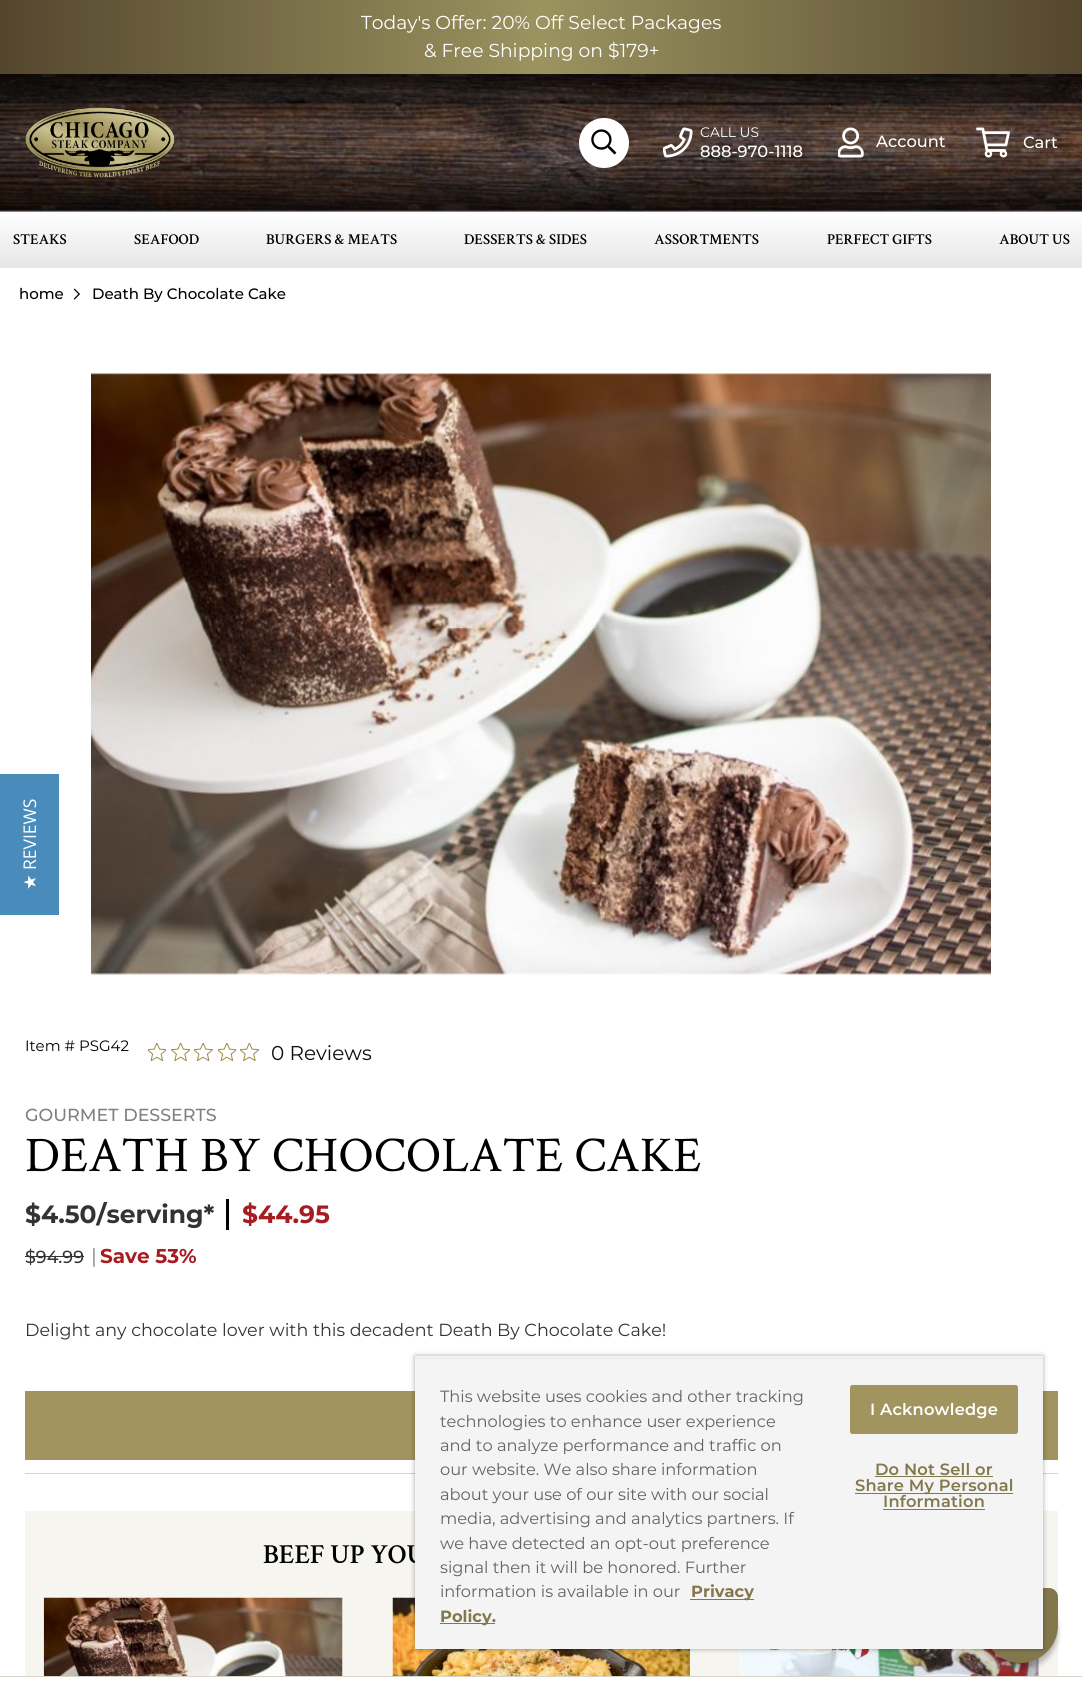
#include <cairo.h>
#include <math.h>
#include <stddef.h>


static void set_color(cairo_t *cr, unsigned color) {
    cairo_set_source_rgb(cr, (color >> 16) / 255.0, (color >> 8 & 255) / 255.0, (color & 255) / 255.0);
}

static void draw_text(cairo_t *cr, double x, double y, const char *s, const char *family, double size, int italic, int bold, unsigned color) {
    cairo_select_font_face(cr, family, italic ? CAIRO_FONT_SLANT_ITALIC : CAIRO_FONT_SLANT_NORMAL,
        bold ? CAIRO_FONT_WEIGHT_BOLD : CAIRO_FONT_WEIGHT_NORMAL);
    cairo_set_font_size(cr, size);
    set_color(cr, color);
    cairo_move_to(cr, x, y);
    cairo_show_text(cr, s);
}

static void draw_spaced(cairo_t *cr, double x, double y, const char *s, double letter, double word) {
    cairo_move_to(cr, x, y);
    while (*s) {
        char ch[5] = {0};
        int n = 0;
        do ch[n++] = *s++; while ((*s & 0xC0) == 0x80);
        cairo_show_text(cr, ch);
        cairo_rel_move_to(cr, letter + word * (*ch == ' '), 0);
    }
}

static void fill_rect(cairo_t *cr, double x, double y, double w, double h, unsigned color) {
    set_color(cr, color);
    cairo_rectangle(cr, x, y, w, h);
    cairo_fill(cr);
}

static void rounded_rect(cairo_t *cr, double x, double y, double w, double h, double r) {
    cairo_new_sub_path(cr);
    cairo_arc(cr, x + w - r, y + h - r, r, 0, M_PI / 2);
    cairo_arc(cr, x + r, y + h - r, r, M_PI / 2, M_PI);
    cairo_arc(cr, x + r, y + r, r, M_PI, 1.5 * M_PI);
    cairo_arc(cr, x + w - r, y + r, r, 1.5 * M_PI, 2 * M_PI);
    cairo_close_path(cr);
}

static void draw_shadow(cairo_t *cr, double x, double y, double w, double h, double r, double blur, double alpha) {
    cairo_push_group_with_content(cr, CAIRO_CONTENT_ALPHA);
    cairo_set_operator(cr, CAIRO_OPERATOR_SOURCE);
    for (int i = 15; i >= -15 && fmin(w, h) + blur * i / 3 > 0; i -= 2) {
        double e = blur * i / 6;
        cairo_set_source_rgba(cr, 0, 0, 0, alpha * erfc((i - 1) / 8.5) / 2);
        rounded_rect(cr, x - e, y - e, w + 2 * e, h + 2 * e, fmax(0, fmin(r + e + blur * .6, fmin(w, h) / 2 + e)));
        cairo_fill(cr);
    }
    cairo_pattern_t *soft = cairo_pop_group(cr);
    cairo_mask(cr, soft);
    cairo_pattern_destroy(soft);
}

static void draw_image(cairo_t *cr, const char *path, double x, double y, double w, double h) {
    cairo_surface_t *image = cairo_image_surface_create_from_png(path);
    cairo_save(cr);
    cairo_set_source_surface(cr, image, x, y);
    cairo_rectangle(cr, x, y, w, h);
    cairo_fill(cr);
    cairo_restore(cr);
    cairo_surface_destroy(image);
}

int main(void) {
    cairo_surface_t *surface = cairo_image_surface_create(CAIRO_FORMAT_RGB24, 1082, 1688);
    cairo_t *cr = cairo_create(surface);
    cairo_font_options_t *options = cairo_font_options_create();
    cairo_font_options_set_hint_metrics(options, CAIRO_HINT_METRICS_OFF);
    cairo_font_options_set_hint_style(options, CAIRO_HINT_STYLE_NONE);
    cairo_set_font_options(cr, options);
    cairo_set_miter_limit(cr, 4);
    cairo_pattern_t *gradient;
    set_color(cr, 0xFFFFFF);
    cairo_paint(cr);
    gradient = cairo_pattern_create_linear(0, 37, 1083, 37);
    cairo_pattern_add_color_stop_rgba(gradient, 0, 0.329, 0.275, 0.18, 1);
    cairo_pattern_add_color_stop_rgba(gradient, 0.5, 0.608, 0.576, 0.376, 1);
    cairo_pattern_add_color_stop_rgba(gradient, 1, 0.329, 0.275, 0.18, 1);
    cairo_set_source(cr, gradient);
    cairo_pattern_destroy(gradient);
    cairo_rectangle(cr, 0, 0, 1082, 74);
    cairo_fill(cr);
    draw_text(cr, 361, 29, "Today's Offer: 20% Off Select Packages", "Montserrat Thin", 18.75, 0, 0, 0xFFFFFF);
    draw_text(cr, 424, 57, "& Free Shipping on $179+", "Montserrat Thin", 18.75, 0, 0, 0xFFFFFF);
    draw_image(cr, "assets/img1.png", 0, 74, 1082, 138);
    draw_image(cr, "assets/img2.png", 25, 107, 150, 71);
    cairo_arc(cr, 604, 143, 25, 0, 2 * M_PI);
    cairo_fill(cr);
    draw_image(cr, "assets/img3.png", 591, 129, 26, 26);
    draw_image(cr, "assets/img4.png", 663, 127, 30, 31);
    draw_text(cr, 700, 137, "CALL US", "Montserrat Thin", 13.75, 0, 0, 0xFFFFFF);
    draw_text(cr, 700, 157, "888-970-1118", "Montserrat Medium", 16.25, 0, 0, 0xFFFFFF);
    draw_image(cr, "assets/img5.png", 838, 127, 26, 31);
    draw_text(cr, 876, 147, "Account", "Montserrat Medium", 16.25, 0, 0, 0xFFFFFF);
    draw_image(cr, "assets/img6.png", 976, 127, 34, 31);
    draw_text(cr, 1023, 148, "Cart", "Montserrat Medium", 16.25, 0, 0, 0xFFFFFF);
    gradient = cairo_pattern_create_linear(541, 268, 541, 211);
    cairo_pattern_add_color_stop_rgba(gradient, 0, 0.902, 0.902, 0.902, 1);
    cairo_pattern_add_color_stop_rgba(gradient, 1, 1, 1, 1, 1);
    cairo_set_source(cr, gradient);
    cairo_pattern_destroy(gradient);
    cairo_rectangle(cr, 0, 217, 1082, 51);
    cairo_fill(cr);
    draw_text(cr, 13, 244, "STEAKS", "Crimson Text SemiBold", 15, 0, 0, 0x000000);
    draw_text(cr, 134, 244, "SEAFOOD", "Crimson Text SemiBold", 15, 0, 0, 0x000000);
    draw_text(cr, 266, 244, "BURGERS & MEATS", "Crimson Text SemiBold", 15, 0, 0, 0x000000);
    draw_text(cr, 464, 244, "DESSERTS & SIDES", "Crimson Text SemiBold", 15, 0, 0, 0x000000);
    draw_text(cr, 654, 244, "ASSORTMENTS", "Crimson Text SemiBold", 15, 0, 0, 0x000000);
    draw_text(cr, 827, 244, "PERFECT GIFTS", "Crimson Text SemiBold", 15, 0, 0, 0x000000);
    draw_text(cr, 999, 244, "ABOUT US", "Crimson Text SemiBold", 15, 0, 0, 0x000000);
    draw_text(cr, 19, 299, "home", "Montserrat Medium", 15, 0, 0, 0x000000);
    draw_image(cr, "assets/img7.png", 73, 288, 7, 12);
    draw_text(cr, 92, 299, "Death By Chocolate Cake", "Montserrat Medium", 15, 0, 0, 0x000000);
    draw_image(cr, "assets/img8.png", 91, 373, 900, 602);
    draw_text(cr, 25, 1051, "Item # PSG42", "Montserrat Thin", 15, 0, 0, 0x000000);
    draw_image(cr, "assets/img9.png", 148, 1043, 18, 18);
    draw_image(cr, "assets/img10.png", 171, 1043, 19, 18);
    draw_image(cr, "assets/img11.png", 194, 1043, 19, 18);
    draw_image(cr, "assets/img9.png", 218, 1043, 18, 18);
    draw_image(cr, "assets/img12.png", 240, 1043, 19, 18);
    draw_text(cr, 271, 1060, "0 Reviews", "Montserrat Thin", 20, 0, 0, 0x0C0C0D);
    draw_text(cr, 25, 1121, "GOURMET DESSERTS", "Montserrat Medium", 17.5, 0, 0, 0x808080);
    draw_text(cr, 25, 1171, "DEATH BY CHOCOLATE CAKE", "Crimson Text", 50, 0, 0, 0x000000);
    fill_rect(cr, 226, 1199, 3, 31, 0x000000);
    draw_text(cr, 25, 1223, "$4.50/serving*", "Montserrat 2 Thin", 25, 0, 0, 0x333333);
    draw_text(cr, 242, 1223, "$44.95", "Montserrat 2 Thin", 25, 0, 0, 0xA61C20);
    draw_text(cr, 25, 1263, "$94.99", "Montserrat Medium", 17.5, 0, 0, 0x333333);
    fill_rect(cr, 25, 1256, 59, 1, 0x333333);
    draw_text(cr, 91, 1263, "|", "Montserrat Thin", 20, 0, 0, 0x808080);
    draw_text(cr, 100, 1263, "Save 53%", "Montserrat 2 Thin", 20, 0, 0, 0xA61C20);
    draw_text(cr, 25, 1336, "Delight any chocolate lover with this decadent Death By Chocolate Cake!", "Montserrat Thin", 17.5, 0, 0, 0x333333);
    fill_rect(cr, 25, 1473, 1033, 1, 0xD7D4C9);
    fill_rect(cr, 25, 1391, 1033, 69, 0xA1945E);
    fill_rect(cr, 25, 1511, 1033, 165, 0xF6F5EF);
    draw_image(cr, "assets/img15.png", 740, 1649, 299, 27);
    set_color(cr, 0x000000);
    draw_shadow(cr, 983, 1594, 75, 75, 37.5, 2.5, 0.26);
    fill_rect(cr, 0, 1676, 1082, 1, 0xD7D4C9);
    draw_text(cr, 263, 1563, "BEEF UP YOU", "Crimson Text SemiBold", 27.5, 0, 0, 0x000000);
    draw_image(cr, "assets/img13.png", 43, 1597, 300, 79);
    draw_image(cr, "assets/img14.png", 392, 1597, 298, 79);
    fill_rect(cr, 0, 774, 59, 141, 0x498CBC);
    cairo_save(cr);
    cairo_translate(cr, 36, 870);
    cairo_rotate(cr, -90 * M_PI / 180);
    draw_text(cr, 0, 0, "REVIEWS", "Open Sans", 17.5, 0, 0, 0xFFFFFF);
    cairo_restore(cr);
    cairo_save(cr);
    cairo_translate(cr, 36, 890);
    cairo_rotate(cr, -90 * M_PI / 180);
    draw_text(cr, 0, 0, "★", "DejaVu Sans", 17.5, 0, 0, 0xFFFFFF);
    cairo_restore(cr);
    set_color(cr, 0x83784B);
    cairo_new_path(cr);
    cairo_move_to(cr, 1020.5, 1588);
    cairo_line_to(cr, 1049, 1588);
    cairo_curve_to(cr, 1054, 1588, 1058, 1592, 1058, 1597);
    cairo_line_to(cr, 1058, 1625.5);
    cairo_curve_to(cr, 1058, 1646, 1041, 1663, 1020.5, 1663);
    cairo_curve_to(cr, 1000, 1663, 983, 1646, 983, 1625.5);
    cairo_curve_to(cr, 983, 1605, 1000, 1588, 1020.5, 1588);
    cairo_close_path(cr);
    cairo_fill(cr);
    cairo_save(cr);
    cairo_set_fill_rule(cr, CAIRO_FILL_RULE_EVEN_ODD);
    cairo_new_path(cr);
    cairo_move_to(cr, 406, 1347);
    cairo_line_to(cr, 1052, 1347);
    cairo_line_to(cr, 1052, 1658);
    cairo_line_to(cr, 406, 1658);
    cairo_close_path(cr);
    cairo_move_to(cr, 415, 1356);
    cairo_line_to(cr, 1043, 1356);
    cairo_line_to(cr, 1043, 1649);
    cairo_line_to(cr, 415, 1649);
    cairo_close_path(cr);
    cairo_clip(cr);
    set_color(cr, 0x000000);
    draw_shadow(cr, 415, 1356, 628, 293, 0, 2.5, 0.35);
    cairo_restore(cr);
    cairo_save(cr);
    cairo_rectangle(cr, 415, 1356, 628, 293);
    cairo_clip(cr);
    set_color(cr, 0x000000);
    draw_shadow(cr, 415, 1359, 628, 290, 0, 2.5, 0.2);
    cairo_restore(cr);
    fill_rect(cr, 415, 1359, 628, 290, 0xF4F4F4);
    draw_text(cr, 440, 1402, "This website uses cookies and other tracking", "Montserrat Thin", 16.25, 0, 0, 0x636363);
    draw_text(cr, 440, 1427, "technologies to enhance user experience", "Montserrat Thin", 16.25, 0, 0, 0x636363);
    draw_text(cr, 440, 1451, "and to analyze performance and traffic on", "Montserrat Thin", 16.25, 0, 0, 0x636363);
    draw_text(cr, 440, 1475, "our website. We also share information", "Montserrat Thin", 16.25, 0, 0, 0x636363);
    draw_text(cr, 440, 1500, "about your use of our site with our social", "Montserrat Thin", 16.25, 0, 0, 0x636363);
    draw_text(cr, 440, 1524, "media, advertising and analytics partners. If", "Montserrat Thin", 16.25, 0, 0, 0x636363);
    draw_text(cr, 440, 1549, "we have detected an opt-out preference", "Montserrat Thin", 16.25, 0, 0, 0x636363);
    draw_text(cr, 440, 1573, "signal then it will be honored. Further", "Montserrat Thin", 16.25, 0, 0, 0x636363);
    draw_text(cr, 440, 1597, "information is available in our", "Montserrat Thin", 16.25, 0, 0, 0x636363);
    fill_rect(cr, 690, 1599, 64, 1, 0x83784B);
    draw_text(cr, 691, 1597, "Privacy", "Montserrat 2 Thin", 16.25, 0, 0, 0x83784B);
    fill_rect(cr, 440, 1623, 55, 1, 0x83784B);
    draw_text(cr, 440, 1622, "Policy.", "Montserrat 2 Thin", 16.25, 0, 0, 0x83784B);
    set_color(cr, 0xA1945E);
    rounded_rect(cr, 850.5, 1385.5, 167, 48, 2);
    cairo_fill_preserve(cr);
    cairo_set_line_width(cr, 1);
    cairo_stroke(cr);
    cairo_select_font_face(cr, "Montserrat SemiBold", CAIRO_FONT_SLANT_NORMAL, CAIRO_FONT_WEIGHT_NORMAL);
    set_color(cr, 0xFFFFFF);
    draw_spaced(cr, 870, 1415, "I Acknowledge", 0.2, 0);
    set_color(cr, 0x83784B);
    draw_spaced(cr, 875, 1475, "Do Not Sell or", 0.2, 0);
    fill_rect(cr, 875, 1476, 118, 1, 0x83784B);
    fill_rect(cr, 855, 1493, 158, 1, 0x83784B);
    draw_spaced(cr, 855, 1491, "Share My Personal", 0.2, 0);
    draw_spaced(cr, 883, 1507, "Information", 0.2, 0);
    fill_rect(cr, 883, 1509, 102, 1, 0x83784B);
    cairo_surface_write_to_png(surface, "output.png");
    cairo_font_options_destroy(options);
    cairo_destroy(cr);
    cairo_surface_destroy(surface);
    return 0;
}
